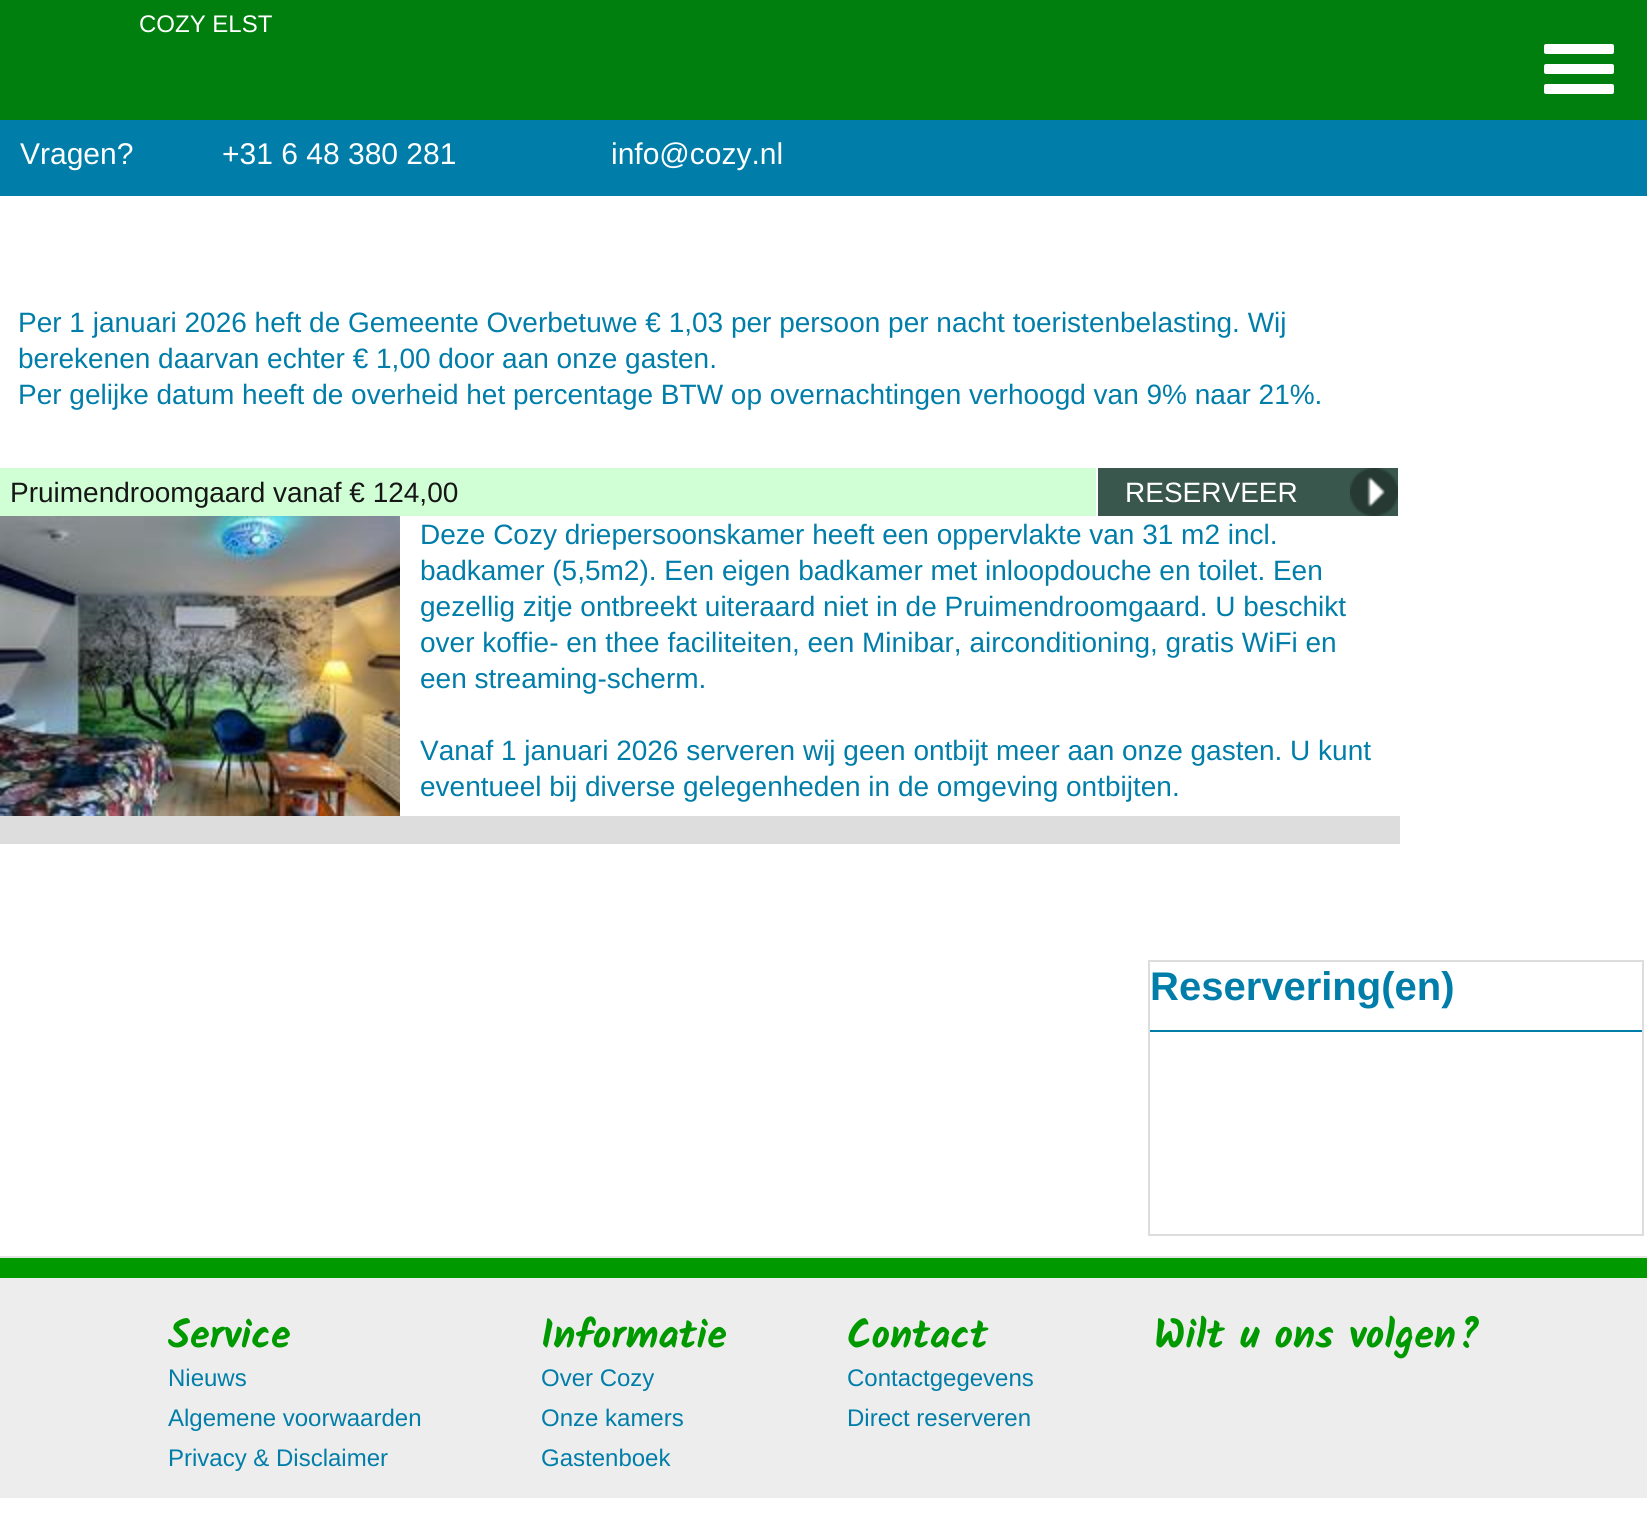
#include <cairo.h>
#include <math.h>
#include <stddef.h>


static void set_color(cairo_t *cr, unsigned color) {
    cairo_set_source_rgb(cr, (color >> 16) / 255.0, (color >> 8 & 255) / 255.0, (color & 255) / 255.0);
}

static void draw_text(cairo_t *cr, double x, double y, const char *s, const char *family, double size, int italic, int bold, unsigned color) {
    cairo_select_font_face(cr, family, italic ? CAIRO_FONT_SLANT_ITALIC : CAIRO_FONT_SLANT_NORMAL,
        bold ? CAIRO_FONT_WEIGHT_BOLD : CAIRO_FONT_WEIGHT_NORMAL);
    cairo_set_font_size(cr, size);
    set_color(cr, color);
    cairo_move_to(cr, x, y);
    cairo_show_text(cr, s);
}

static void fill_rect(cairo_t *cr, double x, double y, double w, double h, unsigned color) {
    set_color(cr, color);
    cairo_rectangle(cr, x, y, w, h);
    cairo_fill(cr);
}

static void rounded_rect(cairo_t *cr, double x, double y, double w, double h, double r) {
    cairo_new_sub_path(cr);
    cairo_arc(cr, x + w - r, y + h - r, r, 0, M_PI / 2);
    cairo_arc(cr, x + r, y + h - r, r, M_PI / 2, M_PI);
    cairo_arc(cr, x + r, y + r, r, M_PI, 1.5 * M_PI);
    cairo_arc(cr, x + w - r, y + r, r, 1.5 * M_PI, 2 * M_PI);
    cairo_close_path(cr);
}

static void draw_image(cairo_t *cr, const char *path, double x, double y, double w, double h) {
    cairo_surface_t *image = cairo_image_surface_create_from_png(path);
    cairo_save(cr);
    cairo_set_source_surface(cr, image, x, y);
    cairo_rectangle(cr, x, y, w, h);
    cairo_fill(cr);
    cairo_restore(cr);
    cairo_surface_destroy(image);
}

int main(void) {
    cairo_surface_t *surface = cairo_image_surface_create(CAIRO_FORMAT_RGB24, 1647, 1539);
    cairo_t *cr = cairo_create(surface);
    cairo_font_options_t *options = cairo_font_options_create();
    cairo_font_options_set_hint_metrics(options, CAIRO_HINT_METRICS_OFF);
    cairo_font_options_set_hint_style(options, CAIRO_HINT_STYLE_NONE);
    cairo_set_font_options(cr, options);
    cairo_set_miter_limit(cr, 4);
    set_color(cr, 0xFFFFFF);
    cairo_paint(cr);
    fill_rect(cr, 0, 0, 1647, 120, 0x007F0E);
    draw_text(cr, 139, 32, "COZY ELST", "Liberation Sans", 24, 0, 0, 0xFFFFFF);
    rounded_rect(cr, 1544, 64, 70, 10, 2);
    cairo_fill(cr);
    rounded_rect(cr, 1544, 44, 70, 10, 2);
    cairo_fill(cr);
    rounded_rect(cr, 1544, 84, 70, 10, 2);
    cairo_fill(cr);
    fill_rect(cr, 0, 120, 1647, 76, 0x007EA9);
    draw_text(cr, 20, 164, "Vragen?", "Liberation Sans", 30, 0, 0, 0xFFFFFF);
    draw_text(cr, 222, 164, "+31 6 48 380 281", "Liberation Sans", 30, 0, 0, 0xFFFFFF);
    draw_text(cr, 611, 164, "info@cozy.nl", "Liberation Sans", 30, 0, 0, 0xFFFFFF);
    draw_text(cr, 18, 332, "Per 1 januari 2026 heft de Gemeente Overbetuwe € 1,03 per persoon per nacht toeristenbelasting. Wij", "Liberation Sans", 28, 0, 0, 0x007EA9);
    draw_text(cr, 18, 368, "berekenen daarvan echter € 1,00 door aan onze gasten.", "Liberation Sans", 28, 0, 0, 0x007EA9);
    draw_text(cr, 18, 404, "Per gelijke datum heeft de overheid het percentage BTW op overnachtingen verhoogd van 9% naar 21%.", "Liberation Sans", 28, 0, 0, 0x007EA9);
    fill_rect(cr, 0, 468, 1096, 48, 0xD1FFD5);
    draw_text(cr, 10, 502, "Pruimendroomgaard vanaf € 124,00", "Liberation Sans", 28, 0, 0, 0x161616);
    fill_rect(cr, 1098, 468, 300, 48, 0x3A574E);
    draw_text(cr, 1125, 502, "RESERVEER", "Liberation Sans", 28, 0, 0, 0xFFFFFF);
    draw_image(cr, "assets/img1.png", 1350, 468, 48, 48);
    draw_image(cr, "assets/img2.png", 0, 516, 400, 300);
    draw_text(cr, 420, 544, "Deze Cozy driepersoonskamer heeft een oppervlakte van 31 m2 incl.", "Liberation Sans", 28, 0, 0, 0x007EA9);
    draw_text(cr, 420, 580, "badkamer (5,5m2). Een eigen badkamer met inloopdouche en toilet. Een", "Liberation Sans", 28, 0, 0, 0x007EA9);
    draw_text(cr, 420, 616, "gezellig zitje ontbreekt uiteraard niet in de Pruimendroomgaard. U beschikt", "Liberation Sans", 28, 0, 0, 0x007EA9);
    draw_text(cr, 420, 652, "over koffie- en thee faciliteiten, een Minibar, airconditioning, gratis WiFi en", "Liberation Sans", 28, 0, 0, 0x007EA9);
    draw_text(cr, 420, 688, "een streaming-scherm.", "Liberation Sans", 28, 0, 0, 0x007EA9);
    draw_text(cr, 420, 760, "Vanaf 1 januari 2026 serveren wij geen ontbijt meer aan onze gasten. U kunt", "Liberation Sans", 28, 0, 0, 0x007EA9);
    draw_text(cr, 420, 796, "eventueel bij diverse gelegenheden in de omgeving ontbijten.", "Liberation Sans", 28, 0, 0, 0x007EA9);
    fill_rect(cr, 0, 816, 1400, 28, 0xDDDDDD);
    cairo_rectangle(cr, 1149, 961, 494, 274);
    cairo_stroke(cr);
    draw_text(cr, 1150, 1000, "Reservering(en)", "Liberation Sans", 40, 0, 1, 0x007EA9);
    fill_rect(cr, 1150, 1030, 492, 2, 0x007EA9);
    fill_rect(cr, 0, 1278, 1647, 220, 0xEDEDED);
    fill_rect(cr, 0, 1256, 1647, 2, 0xE4E4E4);
    fill_rect(cr, 0, 1258, 1647, 20, 0x009900);
    draw_text(cr, 168, 1348, "Service", "Kalam", 40, 0, 1, 0x009900);
    draw_text(cr, 168, 1386, "Nieuws", "Liberation Sans", 24, 0, 0, 0x007EA9);
    draw_text(cr, 168, 1426, "Algemene voorwaarden", "Liberation Sans", 24, 0, 0, 0x007EA9);
    draw_text(cr, 168, 1466, "Privacy & Disclaimer", "Liberation Sans", 24, 0, 0, 0x007EA9);
    draw_text(cr, 541, 1348, "Informatie", "Kalam", 40, 0, 1, 0x009900);
    draw_text(cr, 541, 1386, "Over Cozy", "Liberation Sans", 24, 0, 0, 0x007EA9);
    draw_text(cr, 541, 1426, "Onze kamers", "Liberation Sans", 24, 0, 0, 0x007EA9);
    draw_text(cr, 541, 1466, "Gastenboek", "Liberation Sans", 24, 0, 0, 0x007EA9);
    draw_text(cr, 847, 1348, "Contact", "Kalam", 40, 0, 1, 0x009900);
    draw_text(cr, 847, 1386, "Contactgegevens", "Liberation Sans", 24, 0, 0, 0x007EA9);
    draw_text(cr, 847, 1426, "Direct reserveren", "Liberation Sans", 24, 0, 0, 0x007EA9);
    draw_text(cr, 1154, 1348, "Wilt u ons volgen?", "Kalam", 40, 0, 1, 0x009900);
    cairo_surface_write_to_png(surface, "output.png");
    cairo_font_options_destroy(options);
    cairo_destroy(cr);
    cairo_surface_destroy(surface);
    return 0;
}
